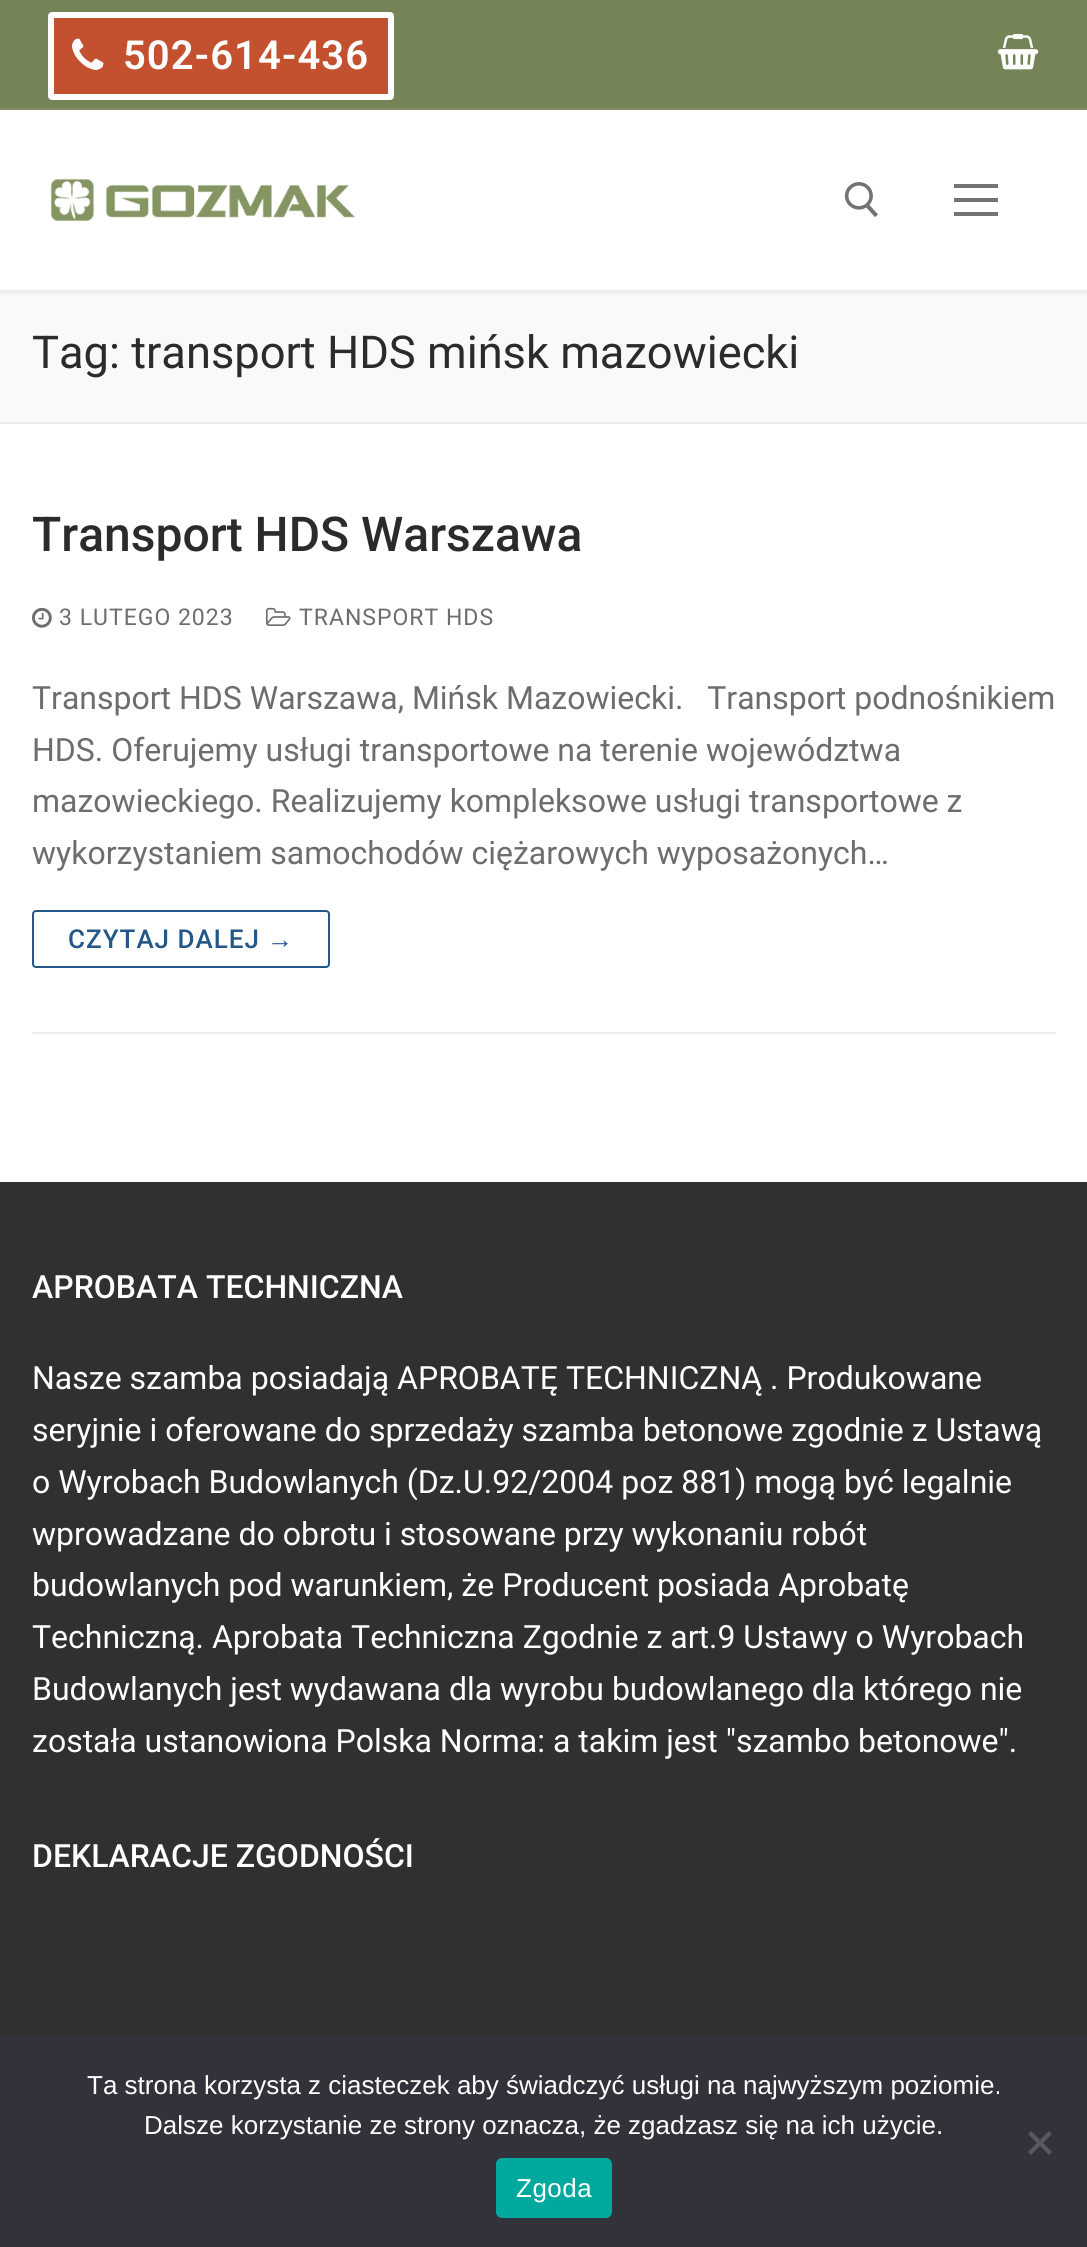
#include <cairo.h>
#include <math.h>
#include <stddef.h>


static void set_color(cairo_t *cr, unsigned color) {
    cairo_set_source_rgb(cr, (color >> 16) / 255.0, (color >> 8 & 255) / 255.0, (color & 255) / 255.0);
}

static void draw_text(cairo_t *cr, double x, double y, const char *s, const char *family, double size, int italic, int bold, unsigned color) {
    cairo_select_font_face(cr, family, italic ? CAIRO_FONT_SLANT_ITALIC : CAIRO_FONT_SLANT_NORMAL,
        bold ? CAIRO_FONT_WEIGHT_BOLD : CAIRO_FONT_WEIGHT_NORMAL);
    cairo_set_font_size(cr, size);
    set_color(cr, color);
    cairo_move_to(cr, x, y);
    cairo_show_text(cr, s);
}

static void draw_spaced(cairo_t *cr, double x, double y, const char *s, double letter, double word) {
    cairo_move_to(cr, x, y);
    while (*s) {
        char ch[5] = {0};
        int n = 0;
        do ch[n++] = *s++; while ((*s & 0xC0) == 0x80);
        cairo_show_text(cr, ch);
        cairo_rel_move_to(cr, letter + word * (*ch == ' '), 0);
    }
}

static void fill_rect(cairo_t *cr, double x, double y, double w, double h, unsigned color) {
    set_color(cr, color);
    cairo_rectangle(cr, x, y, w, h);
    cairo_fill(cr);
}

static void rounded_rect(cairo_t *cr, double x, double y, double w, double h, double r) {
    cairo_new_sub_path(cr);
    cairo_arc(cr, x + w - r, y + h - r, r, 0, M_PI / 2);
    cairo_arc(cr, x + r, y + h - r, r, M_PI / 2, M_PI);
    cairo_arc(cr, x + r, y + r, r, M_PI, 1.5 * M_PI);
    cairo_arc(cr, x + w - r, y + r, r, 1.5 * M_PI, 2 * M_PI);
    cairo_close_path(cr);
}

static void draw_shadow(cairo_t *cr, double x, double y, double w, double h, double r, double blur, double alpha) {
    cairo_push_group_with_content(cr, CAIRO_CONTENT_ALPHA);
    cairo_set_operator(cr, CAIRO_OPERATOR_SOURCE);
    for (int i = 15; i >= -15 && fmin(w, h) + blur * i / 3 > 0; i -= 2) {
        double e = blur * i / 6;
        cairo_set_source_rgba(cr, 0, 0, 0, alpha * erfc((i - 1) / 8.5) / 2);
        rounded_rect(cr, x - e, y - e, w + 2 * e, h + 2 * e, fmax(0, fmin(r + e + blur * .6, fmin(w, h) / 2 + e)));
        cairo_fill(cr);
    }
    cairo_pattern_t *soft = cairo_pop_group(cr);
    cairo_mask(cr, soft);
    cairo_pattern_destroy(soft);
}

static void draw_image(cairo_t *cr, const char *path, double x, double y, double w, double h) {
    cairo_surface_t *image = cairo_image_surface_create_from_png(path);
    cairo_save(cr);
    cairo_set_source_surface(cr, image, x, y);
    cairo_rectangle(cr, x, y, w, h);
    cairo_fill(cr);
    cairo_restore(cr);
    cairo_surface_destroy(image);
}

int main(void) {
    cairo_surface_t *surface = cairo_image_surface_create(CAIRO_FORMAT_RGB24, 1087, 2247);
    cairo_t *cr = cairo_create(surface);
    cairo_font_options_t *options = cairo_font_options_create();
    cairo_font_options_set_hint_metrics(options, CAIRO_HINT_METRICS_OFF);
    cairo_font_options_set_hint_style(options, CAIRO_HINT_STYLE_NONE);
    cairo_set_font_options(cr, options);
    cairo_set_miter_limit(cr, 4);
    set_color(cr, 0xFFFFFF);
    cairo_paint(cr);
    fill_rect(cr, 0, 0, 1087, 110, 0x758457);
    set_color(cr, 0xC3512F);
    rounded_rect(cr, 51, 15, 340, 82, 1);
    cairo_fill_preserve(cr);
    set_color(cr, 0xFFFFFF);
    cairo_set_line_width(cr, 6);
    cairo_stroke(cr);
    draw_image(cr, "assets/img1.png", 72, 38, 32, 32);
    cairo_select_font_face(cr, "Roboto SemiBold", CAIRO_FONT_SLANT_NORMAL, CAIRO_FONT_WEIGHT_NORMAL);
    cairo_set_font_size(cr, 40);
    draw_spaced(cr, 123, 69, "502-614-436", 1, 0);
    draw_image(cr, "assets/img2.png", 997, 34, 42, 36);
    fill_rect(cr, 0, 290, 1087, 132, 0xF9F9F9);
    cairo_save(cr);
    cairo_set_fill_rule(cr, CAIRO_FILL_RULE_EVEN_ODD);
    cairo_new_path(cr);
    cairo_move_to(cr, 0, 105);
    cairo_line_to(cr, 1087, 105);
    cairo_line_to(cr, 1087, 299);
    cairo_line_to(cr, 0, 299);
    cairo_close_path(cr);
    cairo_move_to(cr, 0, 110);
    cairo_line_to(cr, 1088, 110);
    cairo_line_to(cr, 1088, 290);
    cairo_line_to(cr, 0, 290);
    cairo_close_path(cr);
    cairo_clip(cr);
    set_color(cr, 0xE1E5EA);
    draw_shadow(cr, 0, 112, 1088, 180, 0, 2, 1);
    cairo_restore(cr);
    draw_image(cr, "assets/img3.png", 50, 178, 305, 44);
    draw_image(cr, "assets/img4.png", 844, 182, 34, 35);
    fill_rect(cr, 954, 198, 44, 4, 0x737373);
    fill_rect(cr, 954, 184, 44, 4, 0x737373);
    fill_rect(cr, 954, 212, 44, 4, 0x737373);
    fill_rect(cr, 0, 422, 1087, 2, 0xEAECEE);
    draw_text(cr, 32, 368, "Tag: transport HDS mińsk mazowiecki", "Roboto", 45.25, 0, 0, 0x2B2B2B);
    fill_rect(cr, 32, 1032, 1024, 2, 0xEAECEE);
    draw_text(cr, 32, 551, "Transport HDS Warszawa", "Roboto Medium", 48, 0, 0, 0x2B2B2B);
    draw_image(cr, "assets/img5.png", 32, 607, 20, 21);
    cairo_select_font_face(cr, "Roboto", CAIRO_FONT_SLANT_NORMAL, CAIRO_FONT_WEIGHT_NORMAL);
    cairo_set_font_size(cr, 23);
    set_color(cr, 0x6D6D6D);
    draw_spaced(cr, 59, 625, "3 LUTEGO 2023", 1, 0);
    draw_image(cr, "assets/img6.png", 266, 607, 25, 19);
    draw_spaced(cr, 299, 625, "TRANSPORT HDS", 1, 0);
    draw_text(cr, 32, 709, "Transport HDS Warszawa, Mińsk Mazowiecki.   Transport podnośnikiem", "Roboto", 32, 0, 0, 0x6D6D6D);
    draw_text(cr, 32, 761, "HDS. Oferujemy usługi transportowe na terenie województwa", "Roboto", 32, 0, 0, 0x6D6D6D);
    draw_text(cr, 32, 812, "mazowieckiego. Realizujemy kompleksowe usługi transportowe z", "Roboto", 32, 0, 0, 0x6D6D6D);
    draw_text(cr, 32, 864, "wykorzystaniem samochodów ciężarowych wyposażonych…", "Roboto", 32, 0, 0, 0x6D6D6D);
    rounded_rect(cr, 33, 911, 296, 56, 3);
    set_color(cr, 0x235787);
    cairo_set_line_width(cr, 2);
    cairo_stroke(cr);
    cairo_select_font_face(cr, "Roboto Medium", CAIRO_FONT_SLANT_NORMAL, CAIRO_FONT_WEIGHT_NORMAL);
    cairo_set_font_size(cr, 26);
    draw_spaced(cr, 68, 948, "CZYTAJ DALEJ", 1, 0);
    cairo_select_font_face(cr, "Liberation Sans", CAIRO_FONT_SLANT_NORMAL, CAIRO_FONT_WEIGHT_NORMAL);
    draw_spaced(cr, 267, 948, "→", 1, 0);
    fill_rect(cr, 0, 1182, 1087, 854, 0x303030);
    draw_text(cr, 32, 1298, "APROBATA TECHNICZNA", "Roboto Medium", 32, 0, 0, 0xFFFFFF);
    draw_text(cr, 32, 1389, "Nasze szamba posiadają APROBATĘ TECHNICZNĄ . Produkowane", "Roboto", 32, 0, 0, 0xFFFFFF);
    draw_text(cr, 32, 1441, "seryjnie i oferowane do sprzedaży szamba betonowe zgodnie z Ustawą", "Roboto", 32, 0, 0, 0xFFFFFF);
    draw_text(cr, 32, 1493, "o Wyrobach Budowlanych (Dz.U.92/2004 poz 881) mogą być legalnie", "Roboto", 32, 0, 0, 0xFFFFFF);
    draw_text(cr, 32, 1545, "wprowadzane do obrotu i stosowane przy wykonaniu robót", "Roboto", 32, 0, 0, 0xFFFFFF);
    draw_text(cr, 32, 1596, "budowlanych pod warunkiem, że Producent posiada Aprobatę", "Roboto", 32, 0, 0, 0xFFFFFF);
    draw_text(cr, 32, 1648, "Techniczną. Aprobata Techniczna Zgodnie z art.9 Ustawy o Wyrobach", "Roboto", 32, 0, 0, 0xFFFFFF);
    draw_text(cr, 32, 1700, "Budowlanych jest wydawana dla wyrobu budowlanego dla którego nie", "Roboto", 32, 0, 0, 0xFFFFFF);
    draw_text(cr, 32, 1752, "została ustanowiona Polska Norma: a takim jest \"szambo betonowe\".", "Roboto", 32, 0, 0, 0xFFFFFF);
    draw_text(cr, 32, 1867, "DEKLARACJE ZGODNOŚCI", "Roboto Medium", 32, 0, 0, 0xFFFFFF);
    fill_rect(cr, 0, 2036, 1087, 211, 0x32323A);
    draw_text(cr, 87, 2094, "Ta strona korzysta z ciasteczek aby świadczyć usługi na najwyższym poziomie.", "Liberation Sans", 26, 0, 0, 0xFFFFFF);
    draw_text(cr, 144, 2134, "Dalsze korzystanie ze strony oznacza, że zgadzasz się na ich użycie.", "Liberation Sans", 26, 0, 0, 0xFFFFFF);
    set_color(cr, 0x59595D);
    cairo_new_path(cr);
    cairo_move_to(cr, 1049, 2131);
    cairo_line_to(cr, 1052, 2134);
    cairo_line_to(cr, 1031, 2155);
    cairo_line_to(cr, 1028, 2152);
    cairo_close_path(cr);
    cairo_fill(cr);
    cairo_new_path(cr);
    cairo_move_to(cr, 1028, 2134);
    cairo_line_to(cr, 1031, 2131);
    cairo_line_to(cr, 1052, 2152);
    cairo_line_to(cr, 1049, 2155);
    cairo_close_path(cr);
    cairo_fill(cr);
    set_color(cr, 0x00A99D);
    rounded_rect(cr, 496, 2158, 116, 60, 6);
    cairo_fill(cr);
    set_color(cr, 0xFFFFFF);
    draw_spaced(cr, 516, 2197, "Zgoda", 0.5, 0);
    cairo_surface_write_to_png(surface, "output.png");
    cairo_font_options_destroy(options);
    cairo_destroy(cr);
    cairo_surface_destroy(surface);
    return 0;
}
